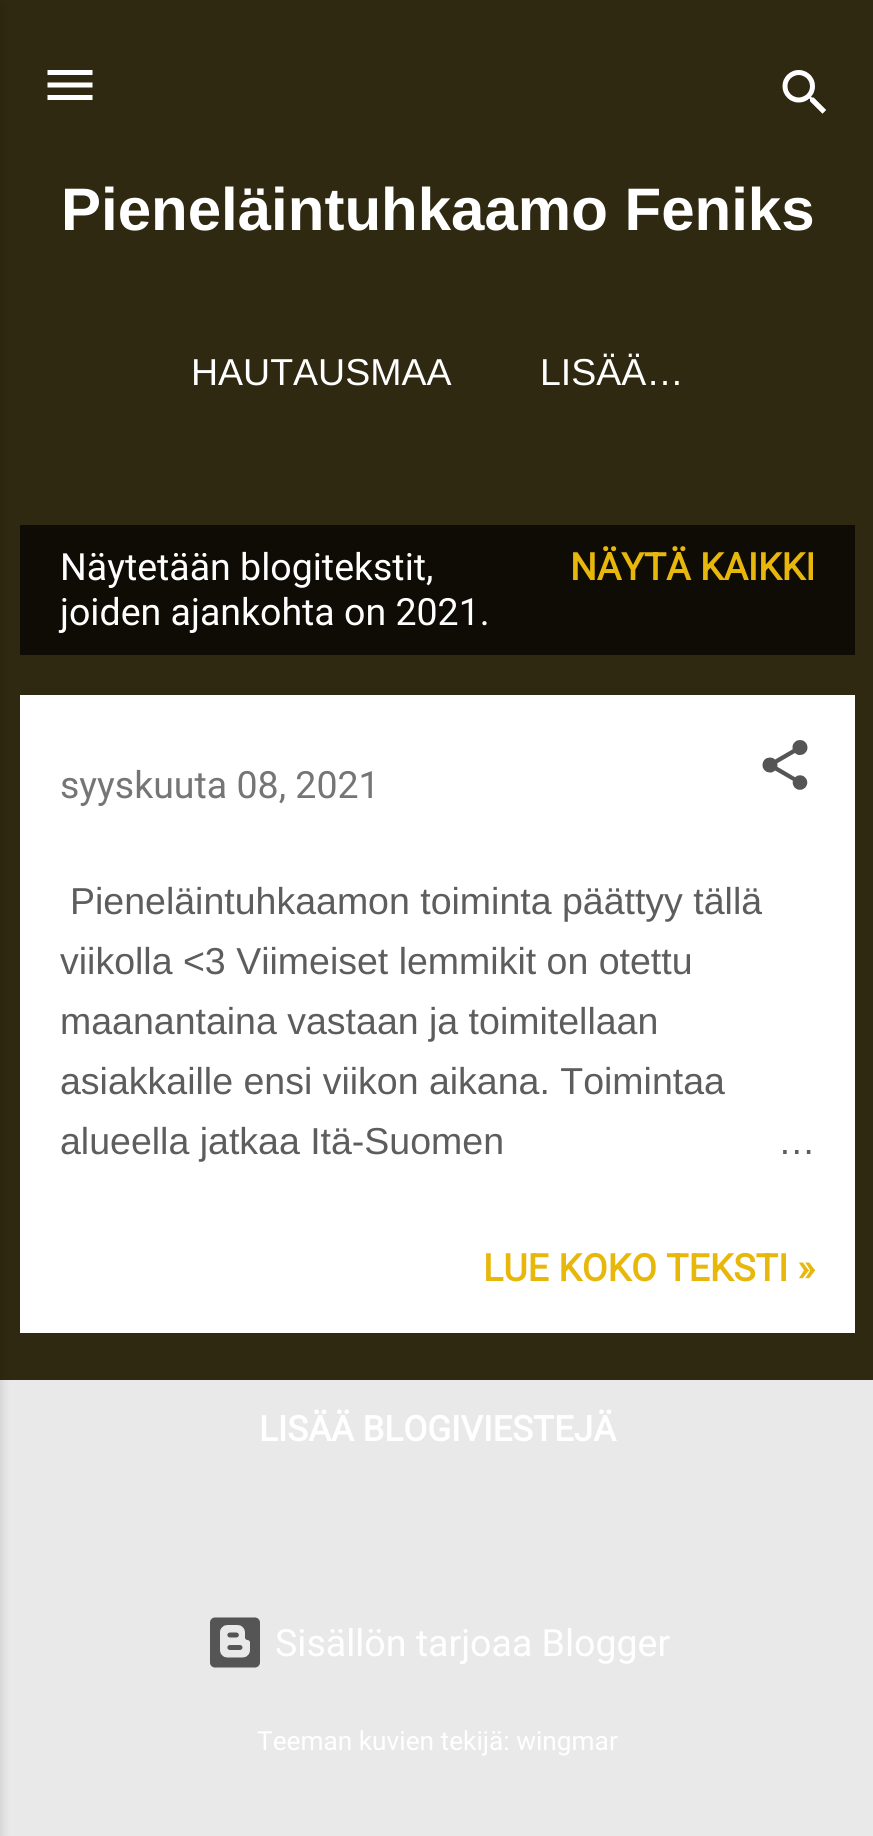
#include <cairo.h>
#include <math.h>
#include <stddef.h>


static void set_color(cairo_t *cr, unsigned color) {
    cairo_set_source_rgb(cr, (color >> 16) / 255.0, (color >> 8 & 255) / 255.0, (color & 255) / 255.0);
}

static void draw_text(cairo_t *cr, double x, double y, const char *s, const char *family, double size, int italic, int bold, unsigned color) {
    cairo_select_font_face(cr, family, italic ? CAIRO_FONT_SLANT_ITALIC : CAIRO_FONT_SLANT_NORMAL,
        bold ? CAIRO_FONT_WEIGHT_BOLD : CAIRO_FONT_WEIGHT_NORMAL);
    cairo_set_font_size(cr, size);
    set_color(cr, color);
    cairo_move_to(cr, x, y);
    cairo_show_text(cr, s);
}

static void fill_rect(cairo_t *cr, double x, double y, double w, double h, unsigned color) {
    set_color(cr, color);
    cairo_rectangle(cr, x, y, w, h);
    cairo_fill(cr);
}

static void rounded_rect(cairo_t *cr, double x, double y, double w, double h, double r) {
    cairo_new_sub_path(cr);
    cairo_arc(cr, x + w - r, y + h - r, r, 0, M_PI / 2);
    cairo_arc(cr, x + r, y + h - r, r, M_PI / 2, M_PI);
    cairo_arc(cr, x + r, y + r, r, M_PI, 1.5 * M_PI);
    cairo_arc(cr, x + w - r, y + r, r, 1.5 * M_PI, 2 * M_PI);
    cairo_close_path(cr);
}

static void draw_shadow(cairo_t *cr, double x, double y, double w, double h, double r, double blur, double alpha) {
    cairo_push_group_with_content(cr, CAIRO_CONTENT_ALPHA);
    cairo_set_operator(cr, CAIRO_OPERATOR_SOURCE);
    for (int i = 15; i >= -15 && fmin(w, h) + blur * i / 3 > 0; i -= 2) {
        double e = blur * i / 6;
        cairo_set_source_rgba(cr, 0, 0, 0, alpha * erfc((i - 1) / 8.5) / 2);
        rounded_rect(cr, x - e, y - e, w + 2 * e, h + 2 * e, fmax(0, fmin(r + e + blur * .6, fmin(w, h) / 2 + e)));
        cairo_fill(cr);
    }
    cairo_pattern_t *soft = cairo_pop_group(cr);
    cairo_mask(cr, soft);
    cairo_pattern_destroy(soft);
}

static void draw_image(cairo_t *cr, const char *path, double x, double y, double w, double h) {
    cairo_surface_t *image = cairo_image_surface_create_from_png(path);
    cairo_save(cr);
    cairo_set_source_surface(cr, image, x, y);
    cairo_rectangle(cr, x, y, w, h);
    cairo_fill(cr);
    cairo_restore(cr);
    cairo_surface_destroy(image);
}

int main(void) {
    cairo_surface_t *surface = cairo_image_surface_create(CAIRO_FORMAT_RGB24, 873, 1836);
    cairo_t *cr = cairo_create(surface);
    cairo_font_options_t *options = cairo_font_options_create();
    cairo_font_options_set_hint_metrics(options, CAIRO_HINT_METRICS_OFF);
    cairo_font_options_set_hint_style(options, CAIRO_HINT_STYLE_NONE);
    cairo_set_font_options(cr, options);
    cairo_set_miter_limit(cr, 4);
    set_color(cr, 0xE9E9E9);
    cairo_paint(cr);
    fill_rect(cr, 0, 0, 873, 1380, 0x2F2911);
    set_color(cr, 0x000000);
    draw_shadow(cr, -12, 3, 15, 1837, 0, 4, 0.1);
    draw_image(cr, "assets/img1.png", 47, 70, 46, 30);
    draw_image(cr, "assets/img2.png", 782, 70, 44, 44);
    draw_text(cr, 61, 230, "Pieneläintuhkaamo Feniks", "Liberation Sans", 60, 0, 1, 0xFFFFFF);
    draw_text(cr, 191, 385, "HAUTAUSMAA", "Liberation Sans", 37.5, 0, 0, 0xFFFFFF);
    draw_text(cr, 540, 385, "LISÄÄ…", "Liberation Sans", 37.5, 0, 0, 0xFFFFFF);
    fill_rect(cr, 20, 525, 835, 130, 0x0E0C05);
    draw_text(cr, 60, 580, "Näytetään blogitekstit,", "Roboto", 37.5, 0, 0, 0xFFFFFF);
    draw_text(cr, 60, 625, "joiden ajankohta on 2021.", "Roboto", 37.5, 0, 0, 0xFFFFFF);
    draw_text(cr, 570, 580, "NÄYTÄ KAIKKI", "Roboto", 37.5, 0, 1, 0xE8B70C);
    fill_rect(cr, 20, 695, 835, 638, 0xFFFFFF);
    draw_text(cr, 60, 798, "syyskuuta 08, 2021", "Roboto", 37.5, 0, 0, 0x757575);
    draw_image(cr, "assets/img3.png", 762, 740, 46, 50);
    draw_text(cr, 70, 914, "Pieneläintuhkaamon toiminta päättyy tällä", "Liberation Sans", 37.5, 0, 0, 0x5D5D5D);
    draw_text(cr, 60, 974, "viikolla <3 Viimeiset lemmikit on otettu", "Liberation Sans", 37.5, 0, 0, 0x5D5D5D);
    draw_text(cr, 60, 1034, "maanantaina vastaan ja toimitellaan", "Liberation Sans", 37.5, 0, 0, 0x5D5D5D);
    draw_text(cr, 60, 1094, "asiakkaille ensi viikon aikana. Toimintaa", "Liberation Sans", 37.5, 0, 0, 0x5D5D5D);
    draw_text(cr, 60, 1154, "alueella jatkaa Itä-Suomen", "Liberation Sans", 37.5, 0, 0, 0x5D5D5D);
    draw_text(cr, 778, 1154, "…", "Liberation Sans", 37.5, 0, 0, 0x5D5D5D);
    draw_text(cr, 483, 1281, "LUE KOKO TEKSTI »", "Roboto", 37.5, 0, 1, 0xE8B70C);
    draw_text(cr, 259, 1441, "LISÄÄ BLOGIVIESTEJÄ", "Roboto", 35, 0, 1, 0xFFFFFF);
    draw_image(cr, "assets/img4.png", 210, 1617, 50, 51);
    draw_text(cr, 275, 1656, "Sisällön tarjoaa Blogger", "Roboto", 37.5, 0, 0, 0xFFFFFF);
    draw_text(cr, 257, 1750, "Teeman kuvien tekijä: wingmar", "Roboto", 26.25, 0, 0, 0xFFFFFF);
    cairo_surface_write_to_png(surface, "output.png");
    cairo_font_options_destroy(options);
    cairo_destroy(cr);
    cairo_surface_destroy(surface);
    return 0;
}
